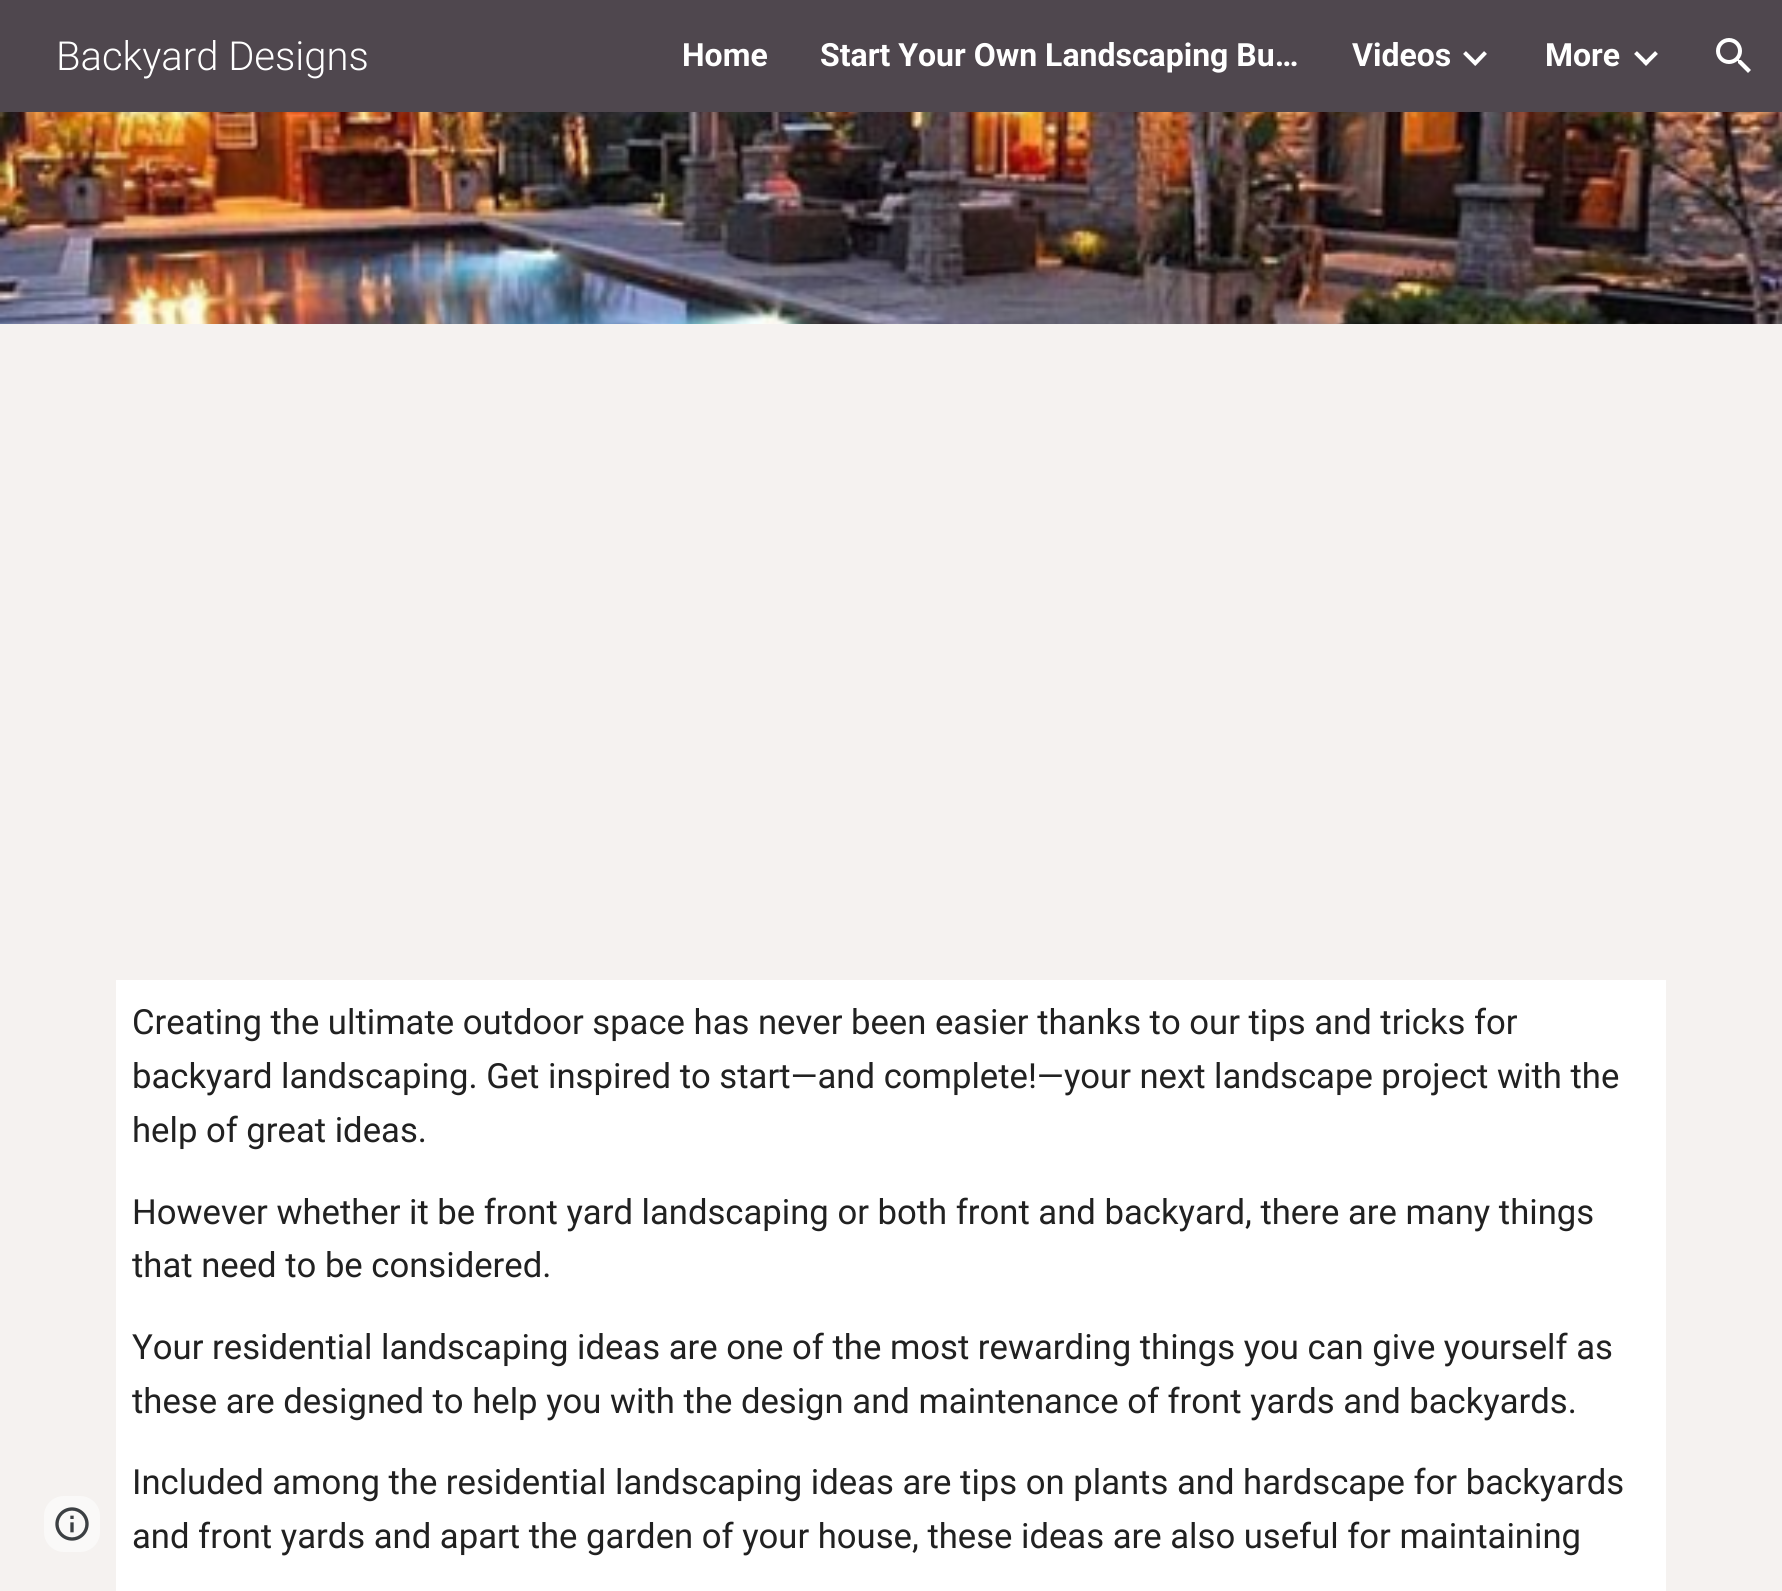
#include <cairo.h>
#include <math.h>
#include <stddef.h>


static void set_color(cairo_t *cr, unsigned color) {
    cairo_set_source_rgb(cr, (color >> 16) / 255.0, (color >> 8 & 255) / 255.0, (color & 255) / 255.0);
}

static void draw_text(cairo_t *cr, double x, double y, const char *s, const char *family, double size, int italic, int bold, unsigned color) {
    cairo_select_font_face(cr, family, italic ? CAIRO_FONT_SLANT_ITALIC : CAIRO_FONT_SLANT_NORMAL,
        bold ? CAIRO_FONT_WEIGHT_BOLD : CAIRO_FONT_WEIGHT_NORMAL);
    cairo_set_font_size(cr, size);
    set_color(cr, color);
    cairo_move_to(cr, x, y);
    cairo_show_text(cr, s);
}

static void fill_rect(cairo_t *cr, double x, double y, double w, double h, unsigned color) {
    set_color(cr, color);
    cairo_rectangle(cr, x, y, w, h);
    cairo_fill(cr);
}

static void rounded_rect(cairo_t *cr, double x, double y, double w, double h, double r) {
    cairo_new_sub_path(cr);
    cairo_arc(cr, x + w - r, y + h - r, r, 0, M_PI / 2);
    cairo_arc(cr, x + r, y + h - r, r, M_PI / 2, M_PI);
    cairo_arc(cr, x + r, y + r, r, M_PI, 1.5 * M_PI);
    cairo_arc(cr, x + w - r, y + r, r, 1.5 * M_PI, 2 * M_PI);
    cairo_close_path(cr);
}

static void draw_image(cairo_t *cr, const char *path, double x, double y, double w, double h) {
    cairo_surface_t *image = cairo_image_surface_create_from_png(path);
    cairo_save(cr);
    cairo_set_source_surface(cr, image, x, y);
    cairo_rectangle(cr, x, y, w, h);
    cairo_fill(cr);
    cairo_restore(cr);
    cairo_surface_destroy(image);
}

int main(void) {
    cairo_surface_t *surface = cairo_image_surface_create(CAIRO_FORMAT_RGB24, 1782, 1591);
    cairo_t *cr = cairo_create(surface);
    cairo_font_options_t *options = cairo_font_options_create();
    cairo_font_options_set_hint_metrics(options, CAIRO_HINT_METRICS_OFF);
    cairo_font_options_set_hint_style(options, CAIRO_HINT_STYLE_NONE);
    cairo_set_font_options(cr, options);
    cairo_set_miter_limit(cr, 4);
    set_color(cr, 0xF5F2F0);
    cairo_paint(cr);
    fill_rect(cr, 0, 0, 1782, 112, 0x4F474E);
    draw_text(cr, 56, 70, "Backyard Designs", "Roboto Light", 40, 0, 0, 0xFFFFFF);
    draw_text(cr, 682, 66, "Home", "Roboto", 32, 0, 1, 0xFFFFFF);
    draw_text(cr, 820, 66, "Start Your Own Landscaping Bu…", "Roboto", 32, 0, 1, 0xFFFFFF);
    draw_text(cr, 1352, 66, "Videos", "Roboto", 32, 0, 1, 0xFFFFFF);
    cairo_new_path(cr);
    cairo_move_to(cr, 1464.5, 52.5);
    cairo_line_to(cr, 1476.5, 64.5);
    cairo_move_to(cr, 1474, 64.5);
    cairo_line_to(cr, 1485.5, 52.5);
    cairo_set_line_width(cr, 4);
    cairo_stroke(cr);
    draw_text(cr, 1545, 66, "More", "Roboto", 32, 0, 1, 0xFFFFFF);
    cairo_new_path(cr);
    cairo_move_to(cr, 1635.5, 52.5);
    cairo_line_to(cr, 1647.5, 64.5);
    cairo_move_to(cr, 1644.5, 64.5);
    cairo_line_to(cr, 1656.5, 52.5);
    cairo_stroke(cr);
    draw_image(cr, "assets/img1.png", 1716, 38, 35, 35);
    set_color(cr, 0xFAF9F8);
    rounded_rect(cr, 44, 1496, 56, 56, 20);
    cairo_fill(cr);
    draw_image(cr, "assets/img2.png", 55, 1507, 34, 34);
    draw_image(cr, "assets/img3.png", 0, 112, 1782, 212);
    fill_rect(cr, 116, 980, 1550, 611, 0xFFFFFF);
    draw_text(cr, 132, 1034, "Creating the ultimate outdoor space has never been easier thanks to our tips and tricks for", "Roboto", 34.65, 0, 0, 0x212121);
    draw_text(cr, 132, 1088, "backyard landscaping. Get inspired to start—and complete!—your next landscape project with the", "Roboto", 34.65, 0, 0, 0x212121);
    draw_text(cr, 132, 1142, "help of great ideas.", "Roboto", 34.65, 0, 0, 0x212121);
    draw_text(cr, 132, 1224, "However whether it be front yard landscaping or both front and backyard, there are many things", "Roboto", 34.65, 0, 0, 0x212121);
    draw_text(cr, 132, 1277, "that need to be considered.", "Roboto", 34.65, 0, 0, 0x212121);
    draw_text(cr, 132, 1359, "Your residential landscaping ideas are one of the most rewarding things you can give yourself as", "Roboto", 34.65, 0, 0, 0x212121);
    draw_text(cr, 132, 1413, "these are designed to help you with the design and maintenance of front yards and backyards.", "Roboto", 34.65, 0, 0, 0x212121);
    draw_text(cr, 132, 1494, "Included among the residential landscaping ideas are tips on plants and hardscape for backyards", "Roboto", 34.65, 0, 0, 0x212121);
    draw_text(cr, 132, 1548, "and front yards and apart the garden of your house, these ideas are also useful for maintaining", "Roboto", 34.65, 0, 0, 0x212121);
    cairo_surface_write_to_png(surface, "output.png");
    cairo_font_options_destroy(options);
    cairo_destroy(cr);
    cairo_surface_destroy(surface);
    return 0;
}
